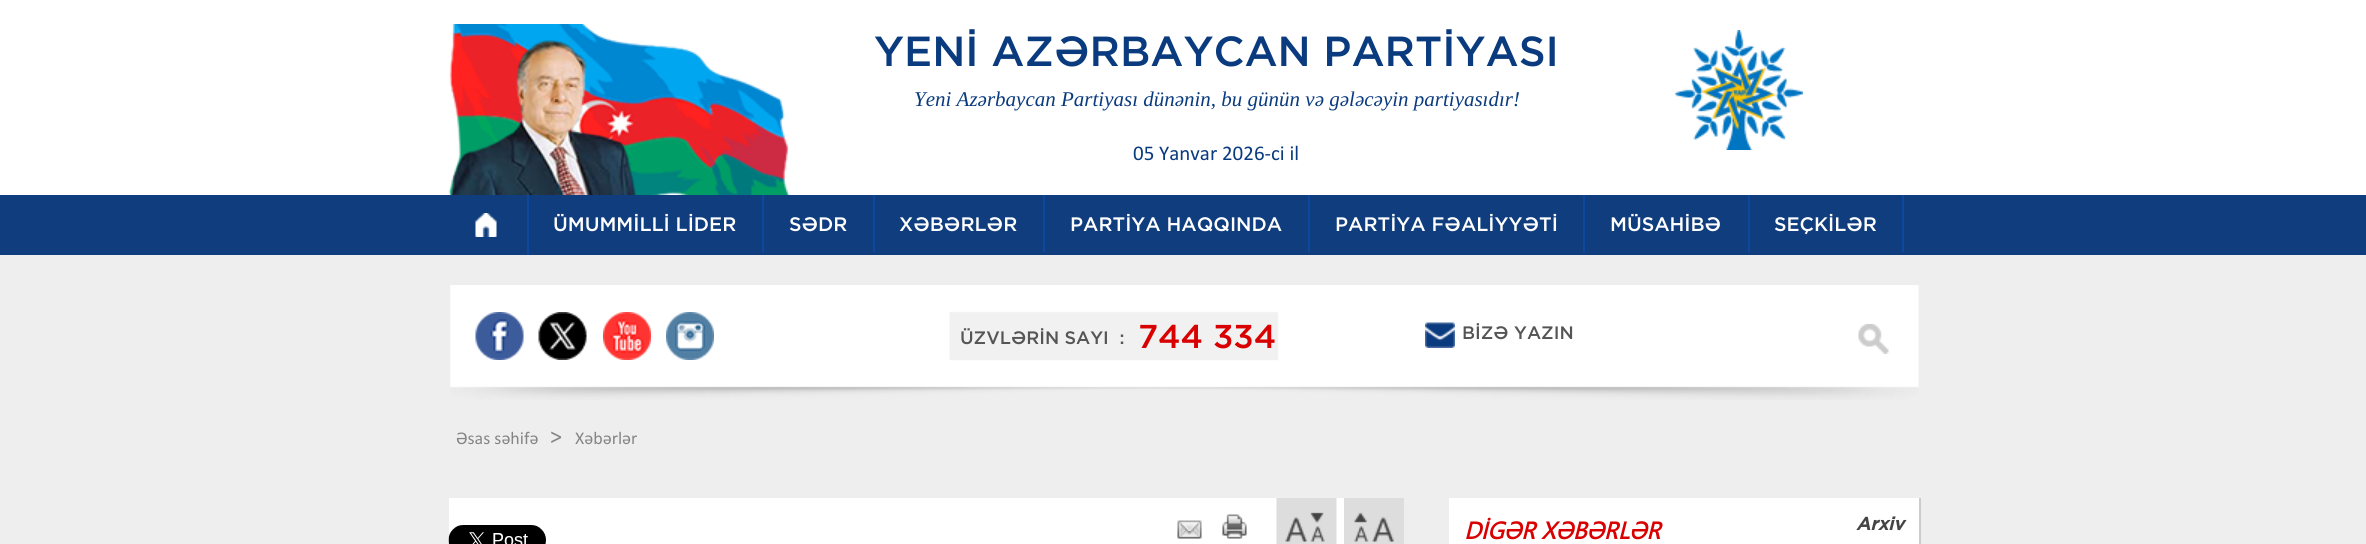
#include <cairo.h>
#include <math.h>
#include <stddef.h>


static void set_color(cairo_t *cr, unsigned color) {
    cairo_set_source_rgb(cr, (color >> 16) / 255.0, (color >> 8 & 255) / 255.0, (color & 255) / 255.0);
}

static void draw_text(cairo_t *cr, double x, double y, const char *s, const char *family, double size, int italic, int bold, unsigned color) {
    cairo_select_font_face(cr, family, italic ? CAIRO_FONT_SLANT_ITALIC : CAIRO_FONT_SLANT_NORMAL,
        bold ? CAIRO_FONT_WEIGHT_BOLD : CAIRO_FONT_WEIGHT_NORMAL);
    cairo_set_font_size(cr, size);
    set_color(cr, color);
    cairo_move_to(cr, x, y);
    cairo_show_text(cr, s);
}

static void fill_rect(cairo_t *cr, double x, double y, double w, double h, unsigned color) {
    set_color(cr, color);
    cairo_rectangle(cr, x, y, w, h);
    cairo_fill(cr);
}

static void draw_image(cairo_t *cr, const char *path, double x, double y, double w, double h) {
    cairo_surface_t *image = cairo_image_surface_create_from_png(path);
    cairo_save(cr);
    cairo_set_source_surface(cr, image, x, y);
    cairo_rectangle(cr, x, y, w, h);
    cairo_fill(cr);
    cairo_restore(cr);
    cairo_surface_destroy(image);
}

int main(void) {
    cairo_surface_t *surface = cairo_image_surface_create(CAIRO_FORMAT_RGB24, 2366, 544);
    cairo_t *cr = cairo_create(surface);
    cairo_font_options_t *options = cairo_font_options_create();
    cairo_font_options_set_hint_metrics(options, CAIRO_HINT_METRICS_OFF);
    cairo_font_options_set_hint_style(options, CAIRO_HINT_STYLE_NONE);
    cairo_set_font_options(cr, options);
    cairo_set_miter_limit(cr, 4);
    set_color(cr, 0xEEEEEE);
    cairo_paint(cr);
    fill_rect(cr, 0, 0, 2366, 195, 0xFFFFFF);
    draw_image(cr, "assets/img1.png", 448, 24, 342, 171);
    draw_text(cr, 874, 66, "YENİ AZƏRBAYCAN PARTİYASI", "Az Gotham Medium", 42, 0, 0, 0x0B3B7F);
    draw_text(cr, 914, 106, "Yeni Azərbaycan Partiyası dünənin, bu günün və gələcəyin partiyasıdır!", "Liberation Serif", 21, 1, 0, 0x0B3B7F);
    draw_text(cr, 1133, 160, "05 Yanvar 2026-ci il", "Calibri", 21, 0, 0, 0x0B3B7F);
    draw_image(cr, "assets/img2.png", 1675, 30, 128, 120);
    fill_rect(cr, 0, 195, 2366, 60, 0x103D7D);
    fill_rect(cr, 527, 195, 2, 60, 0x0C489E);
    draw_image(cr, "assets/img3.png", 475, 213, 22, 24);
    fill_rect(cr, 762, 195, 2, 57, 0x0C489E);
    draw_text(cr, 553, 231, "ÜMUMMİLLİ LİDER", "Az Gotham Medium", 19.5, 0, 0, 0xFFFFFF);
    fill_rect(cr, 873, 195, 2, 57, 0x0C489E);
    draw_text(cr, 789, 231, "SƏDR", "Az Gotham Medium", 19.5, 0, 0, 0xFFFFFF);
    fill_rect(cr, 1043, 195, 2, 57, 0x0C489E);
    draw_text(cr, 899, 231, "XƏBƏRLƏR", "Az Gotham Medium", 19.5, 0, 0, 0xFFFFFF);
    fill_rect(cr, 1308, 195, 2, 57, 0x0C489E);
    draw_text(cr, 1070, 231, "PARTİYA HAQQINDA", "Az Gotham Medium", 19.5, 0, 0, 0xFFFFFF);
    fill_rect(cr, 1583, 195, 2, 57, 0x0C489E);
    draw_text(cr, 1335, 231, "PARTİYA FƏALİYYƏTİ", "Az Gotham Medium", 19.5, 0, 0, 0xFFFFFF);
    fill_rect(cr, 1748, 195, 2, 57, 0x0C489E);
    draw_text(cr, 1610, 231, "MÜSAHİBƏ", "Az Gotham Medium", 19.5, 0, 0, 0xFFFFFF);
    fill_rect(cr, 1902, 195, 2, 57, 0x0C489E);
    draw_text(cr, 1774, 231, "SEÇKİLƏR", "Az Gotham Medium", 19.5, 0, 0, 0xFFFFFF);
    draw_image(cr, "assets/img4.png", 450, 285, 1469, 115);
    draw_image(cr, "assets/img5.png", 475, 312, 49, 48);
    draw_image(cr, "assets/img6.png", 538, 312, 49, 48);
    draw_image(cr, "assets/img7.png", 603, 312, 48, 48);
    draw_image(cr, "assets/img8.png", 666, 312, 48, 48);
    draw_text(cr, 960, 344, "ÜZVLƏRİN SAYI  :", "Az Gotham Medium", 18, 0, 0, 0x555555);
    draw_text(cr, 1138, 348, "744 334", "Az Gotham Medium", 33, 0, 0, 0xD80000);
    draw_image(cr, "assets/img9.png", 1425, 322, 30, 26);
    draw_text(cr, 1462, 339, "BİZƏ YAZIN", "Az Gotham Medium", 18, 0, 0, 0x555555);
    draw_image(cr, "assets/img10.png", 1858, 324, 31, 30);
    draw_text(cr, 456, 444, "Əsas səhifə", "Calibri", 18, 0, 0, 0x858585);
    draw_text(cr, 550, 444, ">", "Calibri", 24, 0, 0, 0x858585);
    draw_text(cr, 575, 444, "Xəbərlər", "Calibri", 18, 0, 0, 0x858585);
    fill_rect(cr, 449, 498, 895, 46, 0xFFFFFF);
    draw_image(cr, "assets/img11.png", 448, 525, 98, 19);
    draw_image(cr, "assets/img12.png", 1177, 520, 25, 19);
    draw_image(cr, "assets/img13.png", 1222, 514, 25, 25);
    draw_image(cr, "assets/img14.png", 1276, 498, 61, 46);
    draw_image(cr, "assets/img15.png", 1344, 498, 60, 46);
    fill_rect(cr, 1449, 498, 470, 46, 0xFFFFFF);
    fill_rect(cr, 1919, 498, 2, 46, 0xCCCCCC);
    draw_text(cr, 1464, 539, "DİGƏR XƏBƏRLƏR", "Segoe UI", 24, 1, 1, 0xD80000);
    draw_text(cr, 1856, 530, "Arxiv", "Az Gotham", 18, 1, 1, 0x444444);
    cairo_surface_write_to_png(surface, "output.png");
    cairo_font_options_destroy(options);
    cairo_destroy(cr);
    cairo_surface_destroy(surface);
    return 0;
}
